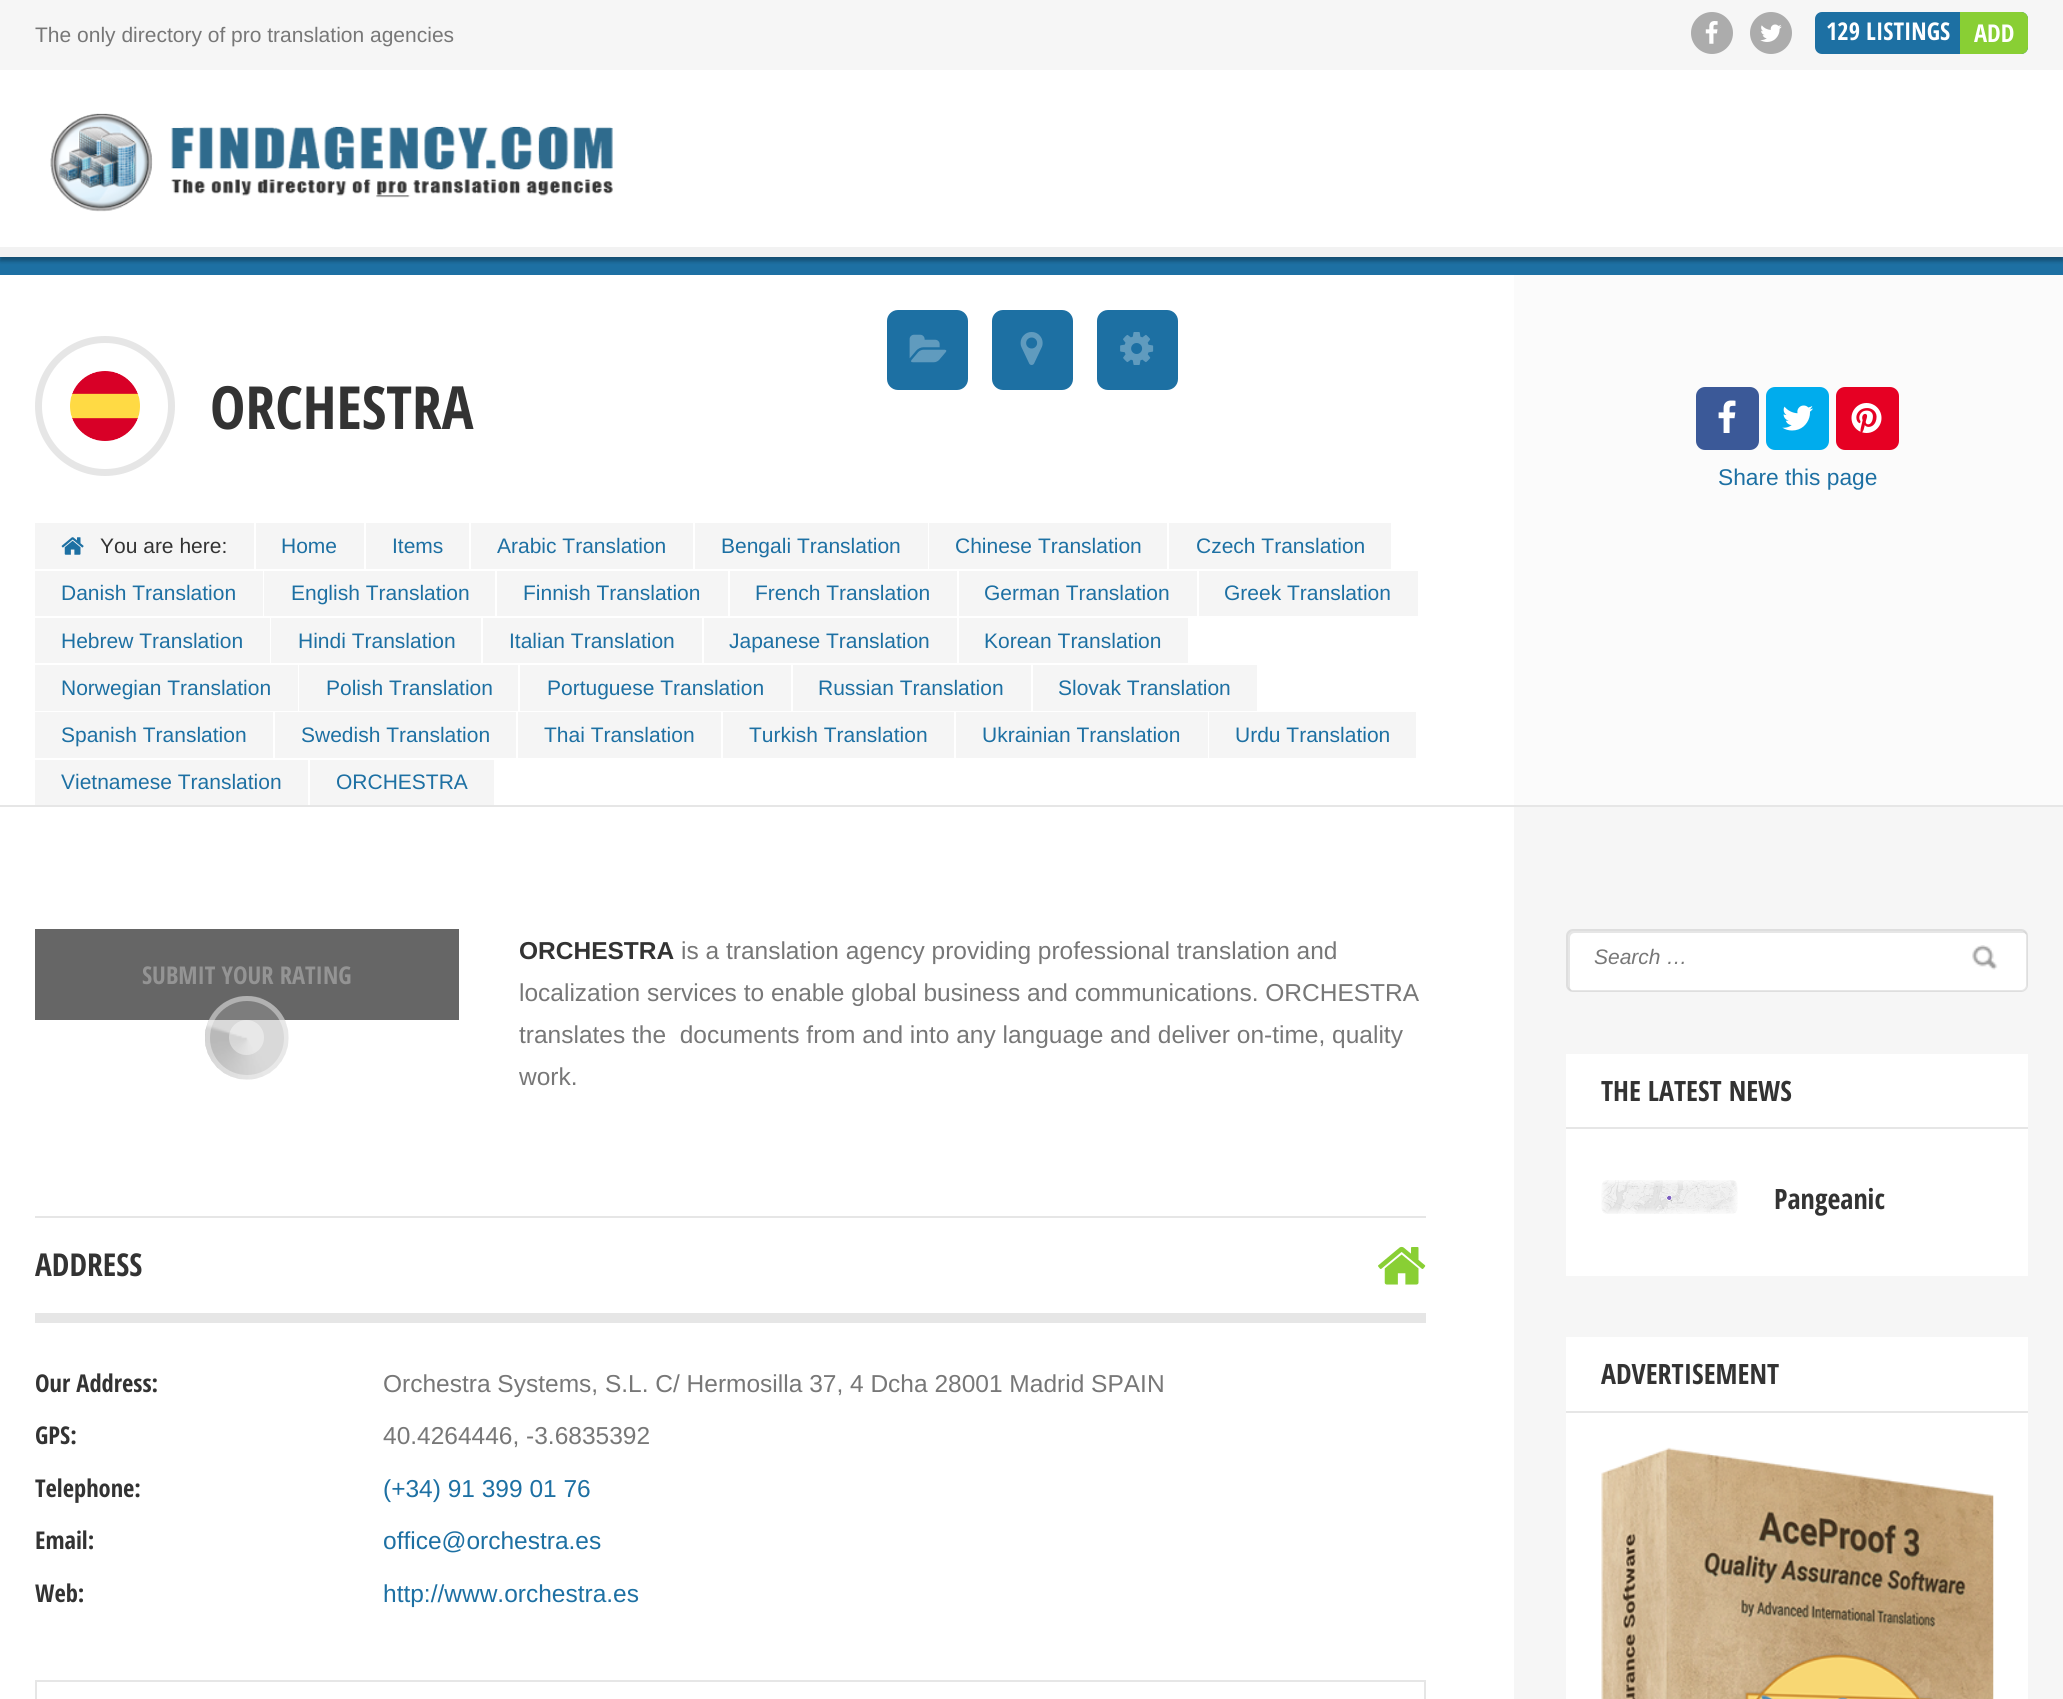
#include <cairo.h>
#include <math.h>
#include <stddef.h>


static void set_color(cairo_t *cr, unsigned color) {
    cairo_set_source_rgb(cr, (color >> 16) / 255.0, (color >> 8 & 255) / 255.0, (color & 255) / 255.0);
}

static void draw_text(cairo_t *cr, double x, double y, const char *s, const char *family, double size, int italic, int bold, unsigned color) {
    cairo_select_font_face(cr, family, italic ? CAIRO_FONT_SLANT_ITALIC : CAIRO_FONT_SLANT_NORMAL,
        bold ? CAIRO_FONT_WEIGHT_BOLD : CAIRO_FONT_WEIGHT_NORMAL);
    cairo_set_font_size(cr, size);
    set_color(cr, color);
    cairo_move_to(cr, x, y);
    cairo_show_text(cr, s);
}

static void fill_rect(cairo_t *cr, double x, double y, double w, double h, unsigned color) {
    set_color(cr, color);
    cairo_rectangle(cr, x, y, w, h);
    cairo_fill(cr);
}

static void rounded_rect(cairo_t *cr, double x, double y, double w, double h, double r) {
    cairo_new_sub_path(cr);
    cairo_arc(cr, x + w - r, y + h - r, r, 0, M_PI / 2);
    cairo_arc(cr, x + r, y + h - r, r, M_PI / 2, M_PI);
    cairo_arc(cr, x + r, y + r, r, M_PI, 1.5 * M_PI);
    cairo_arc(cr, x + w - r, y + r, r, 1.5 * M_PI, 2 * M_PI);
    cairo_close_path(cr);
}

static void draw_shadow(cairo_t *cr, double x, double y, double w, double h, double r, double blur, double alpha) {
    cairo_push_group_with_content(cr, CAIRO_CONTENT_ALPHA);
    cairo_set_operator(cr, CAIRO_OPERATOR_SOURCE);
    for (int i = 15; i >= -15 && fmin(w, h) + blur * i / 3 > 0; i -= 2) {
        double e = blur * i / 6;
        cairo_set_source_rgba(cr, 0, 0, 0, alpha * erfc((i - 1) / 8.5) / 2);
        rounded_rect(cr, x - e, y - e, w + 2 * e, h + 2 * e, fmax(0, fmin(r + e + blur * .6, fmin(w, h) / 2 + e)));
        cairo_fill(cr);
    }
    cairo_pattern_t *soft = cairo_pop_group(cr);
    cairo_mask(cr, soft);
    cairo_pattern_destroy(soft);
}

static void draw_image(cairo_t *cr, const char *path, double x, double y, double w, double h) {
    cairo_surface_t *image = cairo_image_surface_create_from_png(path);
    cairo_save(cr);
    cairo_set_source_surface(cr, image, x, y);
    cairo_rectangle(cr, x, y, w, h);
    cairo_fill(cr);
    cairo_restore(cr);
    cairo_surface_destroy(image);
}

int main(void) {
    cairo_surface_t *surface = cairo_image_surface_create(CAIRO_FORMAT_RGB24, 2063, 1699);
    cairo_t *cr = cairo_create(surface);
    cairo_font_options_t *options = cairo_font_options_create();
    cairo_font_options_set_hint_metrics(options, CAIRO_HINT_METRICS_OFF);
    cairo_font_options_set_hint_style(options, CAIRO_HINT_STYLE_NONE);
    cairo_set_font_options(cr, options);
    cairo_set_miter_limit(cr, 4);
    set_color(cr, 0xFFFFFF);
    cairo_paint(cr);
    fill_rect(cr, 0, 257, 2063, 18, 0x1D70A3);
    set_color(cr, 0x000000);
    draw_shadow(cr, 0, 4, 2063, 257, 0, 2, 0.3);
    fill_rect(cr, 0, 70, 2063, 177, 0xFFFFFF);
    fill_rect(cr, 0, 247, 2063, 10, 0xF2F2F2);
    fill_rect(cr, 0, 0, 2063, 70, 0xF6F6F6);
    draw_text(cr, 35, 42, "The only directory of pro translation agencies", "Liberation Sans", 21, 0, 0, 0x777777);
    set_color(cr, 0xACACAC);
    cairo_new_path(cr);
    cairo_arc(cr, 1712, 33, 21, 0, 2 * M_PI);
    cairo_fill(cr);
    draw_image(cr, "assets/img1.png", 1705, 21, 13, 23);
    cairo_arc(cr, 1771, 33, 21, 0, 2 * M_PI);
    cairo_fill(cr);
    draw_image(cr, "assets/img2.png", 1760, 24, 22, 18);
    set_color(cr, 0x1D70A3);
    rounded_rect(cr, 1815, 12, 213, 42, 7);
    cairo_fill(cr);
    draw_text(cr, 1826, 40, "129 LISTINGS", "Open Sans Condensed", 24.5, 0, 1, 0xFFFFFF);
    set_color(cr, 0x89CF34);
    cairo_new_path(cr);
    cairo_move_to(cr, 1960, 12);
    cairo_line_to(cr, 2021, 12);
    cairo_curve_to(cr, 2025, 12, 2028, 15, 2028, 19);
    cairo_line_to(cr, 2028, 47);
    cairo_curve_to(cr, 2028, 51, 2025, 54, 2021, 54);
    cairo_line_to(cr, 1960, 54);
    cairo_close_path(cr);
    cairo_fill(cr);
    draw_text(cr, 1974, 42, "ADD", "Open Sans Condensed", 24.5, 0, 1, 0xFFFFFF);
    draw_image(cr, "assets/img3.png", 50, 113, 564, 99);
    set_color(cr, 0x1D70A3);
    rounded_rect(cr, 887, 310, 81, 80, 11);
    cairo_fill(cr);
    draw_image(cr, "assets/img4.png", 909, 334, 38, 29);
    rounded_rect(cr, 992, 310, 81, 80, 11);
    cairo_fill(cr);
    draw_image(cr, "assets/img5.png", 1020, 332, 23, 33);
    rounded_rect(cr, 1097, 310, 81, 80, 11);
    cairo_fill(cr);
    draw_image(cr, "assets/img6.png", 1120, 332, 34, 33);
    fill_rect(cr, 0, 805, 2063, 2, 0xE6E6E6);
    fill_rect(cr, 1514, 275, 549, 530, 0xFBFBFB);
    cairo_arc(cr, 105, 406, 66.5, 0, 2 * M_PI);
    set_color(cr, 0xE6E6E6);
    cairo_set_line_width(cr, 7);
    cairo_stroke(cr);
    draw_image(cr, "assets/img7.png", 70, 371, 70, 70);
    draw_text(cr, 210, 429, "ORCHESTRA", "Open Sans Condensed", 59.5, 0, 1, 0x333333);
    fill_rect(cr, 35, 523, 219, 46, 0xF5F5F5);
    draw_image(cr, "assets/img8.png", 61, 537, 23, 18);
    draw_text(cr, 100, 553, "You are here:", "Liberation Sans", 21, 0, 0, 0x333333);
    fill_rect(cr, 256, 523, 108, 46, 0xF5F5F5);
    draw_text(cr, 281, 553, "Home", "Liberation Sans", 21, 0, 0, 0x1D70A3);
    fill_rect(cr, 366, 523, 103, 46, 0xF5F5F5);
    draw_text(cr, 392, 553, "Items", "Liberation Sans", 21, 0, 0, 0x1D70A3);
    fill_rect(cr, 471, 523, 222, 46, 0xF5F5F5);
    draw_text(cr, 497, 553, "Arabic Translation", "Liberation Sans", 21, 0, 0, 0x1D70A3);
    fill_rect(cr, 695, 523, 233, 46, 0xF5F5F5);
    draw_text(cr, 721, 553, "Bengali Translation", "Liberation Sans", 21, 0, 0, 0x1D70A3);
    fill_rect(cr, 929, 523, 238, 46, 0xF5F5F5);
    draw_text(cr, 955, 553, "Chinese Translation", "Liberation Sans", 21, 0, 0, 0x1D70A3);
    fill_rect(cr, 1169, 523, 222, 46, 0xF5F5F5);
    draw_text(cr, 1196, 553, "Czech Translation", "Liberation Sans", 21, 0, 0, 0x1D70A3);
    fill_rect(cr, 35, 571, 228, 45, 0xF5F5F5);
    draw_text(cr, 61, 600, "Danish Translation", "Liberation Sans", 21, 0, 0, 0x1D70A3);
    fill_rect(cr, 264, 571, 231, 45, 0xF5F5F5);
    draw_text(cr, 291, 600, "English Translation", "Liberation Sans", 21, 0, 0, 0x1D70A3);
    fill_rect(cr, 497, 571, 231, 45, 0xF5F5F5);
    draw_text(cr, 523, 600, "Finnish Translation", "Liberation Sans", 21, 0, 0, 0x1D70A3);
    fill_rect(cr, 730, 571, 227, 45, 0xF5F5F5);
    draw_text(cr, 755, 600, "French Translation", "Liberation Sans", 21, 0, 0, 0x1D70A3);
    fill_rect(cr, 959, 571, 238, 45, 0xF5F5F5);
    draw_text(cr, 984, 600, "German Translation", "Liberation Sans", 21, 0, 0, 0x1D70A3);
    fill_rect(cr, 1199, 571, 219, 45, 0xF5F5F5);
    draw_text(cr, 1224, 600, "Greek Translation", "Liberation Sans", 21, 0, 0, 0x1D70A3);
    fill_rect(cr, 35, 618, 235, 45, 0xF5F5F5);
    draw_text(cr, 61, 648, "Hebrew Translation", "Liberation Sans", 21, 0, 0, 0x1D70A3);
    fill_rect(cr, 271, 618, 210, 45, 0xF5F5F5);
    draw_text(cr, 298, 648, "Hindi Translation", "Liberation Sans", 21, 0, 0, 0x1D70A3);
    fill_rect(cr, 483, 618, 219, 45, 0xF5F5F5);
    draw_text(cr, 509, 648, "Italian Translation", "Liberation Sans", 21, 0, 0, 0x1D70A3);
    fill_rect(cr, 704, 618, 253, 45, 0xF5F5F5);
    draw_text(cr, 729, 648, "Japanese Translation", "Liberation Sans", 21, 0, 0, 0x1D70A3);
    fill_rect(cr, 959, 618, 229, 45, 0xF5F5F5);
    draw_text(cr, 984, 648, "Korean Translation", "Liberation Sans", 21, 0, 0, 0x1D70A3);
    fill_rect(cr, 35, 665, 263, 46, 0xF5F5F5);
    draw_text(cr, 61, 695, "Norwegian Translation", "Liberation Sans", 21, 0, 0, 0x1D70A3);
    fill_rect(cr, 299, 665, 219, 46, 0xF5F5F5);
    draw_text(cr, 326, 695, "Polish Translation", "Liberation Sans", 21, 0, 0, 0x1D70A3);
    fill_rect(cr, 520, 665, 271, 46, 0xF5F5F5);
    draw_text(cr, 547, 695, "Portuguese Translation", "Liberation Sans", 21, 0, 0, 0x1D70A3);
    fill_rect(cr, 793, 665, 238, 46, 0xF5F5F5);
    draw_text(cr, 818, 695, "Russian Translation", "Liberation Sans", 21, 0, 0, 0x1D70A3);
    fill_rect(cr, 1033, 665, 224, 46, 0xF5F5F5);
    draw_text(cr, 1058, 695, "Slovak Translation", "Liberation Sans", 21, 0, 0, 0x1D70A3);
    fill_rect(cr, 35, 712, 238, 46, 0xF5F5F5);
    draw_text(cr, 61, 742, "Spanish Translation", "Liberation Sans", 21, 0, 0, 0x1D70A3);
    fill_rect(cr, 275, 712, 241, 46, 0xF5F5F5);
    draw_text(cr, 301, 742, "Swedish Translation", "Liberation Sans", 21, 0, 0, 0x1D70A3);
    fill_rect(cr, 518, 712, 203, 46, 0xF5F5F5);
    draw_text(cr, 544, 742, "Thai Translation", "Liberation Sans", 21, 0, 0, 0x1D70A3);
    fill_rect(cr, 723, 712, 231, 46, 0xF5F5F5);
    draw_text(cr, 749, 742, "Turkish Translation", "Liberation Sans", 21, 0, 0, 0x1D70A3);
    fill_rect(cr, 956, 712, 252, 46, 0xF5F5F5);
    draw_text(cr, 982, 742, "Ukrainian Translation", "Liberation Sans", 21, 0, 0, 0x1D70A3);
    fill_rect(cr, 1209, 712, 207, 46, 0xF5F5F5);
    draw_text(cr, 1235, 742, "Urdu Translation", "Liberation Sans", 21, 0, 0, 0x1D70A3);
    fill_rect(cr, 35, 760, 273, 45, 0xF5F5F5);
    draw_text(cr, 61, 789, "Vietnamese Translation", "Liberation Sans", 21, 0, 0, 0x1D70A3);
    fill_rect(cr, 310, 760, 184, 45, 0xF5F5F5);
    draw_text(cr, 336, 789, "ORCHESTRA", "Liberation Sans", 21, 0, 0, 0x1D70A3);
    set_color(cr, 0x3B5998);
    rounded_rect(cr, 1696, 387, 63, 63, 9);
    cairo_fill(cr);
    draw_image(cr, "assets/img9.png", 1718, 400, 18, 33);
    set_color(cr, 0x00ACED);
    rounded_rect(cr, 1766, 387, 63, 63, 9);
    cairo_fill(cr);
    draw_image(cr, "assets/img10.png", 1782, 405, 31, 26);
    set_color(cr, 0xE60023);
    rounded_rect(cr, 1836, 387, 63, 63, 9);
    cairo_fill(cr);
    draw_image(cr, "assets/img11.png", 1851, 403, 31, 30);
    draw_text(cr, 1718, 485, "Share this page", "Liberation Sans", 22.75, 0, 0, 0x1D70A3);
    fill_rect(cr, 35, 929, 424, 91, 0x666666);
    draw_text(cr, 142, 984, "SUBMIT YOUR RATING", "Open Sans Condensed", 24.5, 0, 1, 0x949494);
    draw_image(cr, "assets/img12.png", 205, 996, 84, 84);
    cairo_arc(cr, 247, 1038, 39.5, 0, 2 * M_PI);
    cairo_set_source_rgba(cr, 1, 1, 1, 0.4);
    cairo_set_line_width(cr, 5);
    cairo_stroke(cr);
    cairo_arc(cr, 246.5, 1037.5, 17.5, 0, 2 * M_PI);
    cairo_fill(cr);
    draw_text(cr, 519, 959, "ORCHESTRA", "Liberation Sans", 24.5, 0, 1, 0x333333);
    draw_text(cr, 681, 959, "is a translation agency providing professional translation and", "Liberation Sans", 24.5, 0, 0, 0x777777);
    draw_text(cr, 519, 1001, "localization services to enable global business and communications. ORCHESTRA", "Liberation Sans", 24.5, 0, 0, 0x777777);
    draw_text(cr, 519, 1043, "translates the  documents from and into any language and deliver on-time, quality", "Liberation Sans", 24.5, 0, 0, 0x777777);
    draw_text(cr, 519, 1085, "work.", "Liberation Sans", 24.5, 0, 0, 0x777777);
    fill_rect(cr, 35, 1216, 1391, 2, 0xE6E6E6);
    draw_text(cr, 35, 1276, "ADDRESS", "Open Sans Condensed", 31.5, 0, 1, 0x333333);
    draw_image(cr, "assets/img13.png", 1378, 1246, 48, 39);
    fill_rect(cr, 35, 1313, 1391, 10, 0xE6E6E6);
    draw_text(cr, 35, 1392, "Our Address:", "Open Sans Condensed", 24.5, 0, 1, 0x333333);
    draw_text(cr, 383, 1392, "Orchestra Systems, S.L. C/ Hermosilla 37, 4 Dcha 28001 Madrid SPAIN", "Liberation Sans", 24.5, 0, 0, 0x777777);
    draw_text(cr, 35, 1444, "GPS:", "Open Sans Condensed", 24.5, 0, 1, 0x333333);
    draw_text(cr, 383, 1444, "40.4264446, -3.6835392", "Liberation Sans", 24.5, 0, 0, 0x777777);
    draw_text(cr, 35, 1497, "Telephone:", "Open Sans Condensed", 24.5, 0, 1, 0x333333);
    draw_text(cr, 383, 1497, "(+34) 91 399 01 76", "Liberation Sans", 24.5, 0, 0, 0x1D70A3);
    draw_text(cr, 35, 1549, "Email:", "Open Sans Condensed", 24.5, 0, 1, 0x333333);
    draw_text(cr, 383, 1549, "office@orchestra.es", "Liberation Sans", 24.5, 0, 0, 0x1D70A3);
    draw_text(cr, 35, 1602, "Web:", "Open Sans Condensed", 24.5, 0, 1, 0x333333);
    draw_text(cr, 383, 1602, "http://www.orchestra.es", "Liberation Sans", 24.5, 0, 0, 0x1D70A3);
    cairo_rectangle(cr, 36, 1681, 1389, 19);
    set_color(cr, 0xE6E6E6);
    cairo_set_line_width(cr, 2);
    cairo_stroke(cr);
    fill_rect(cr, 1514, 807, 549, 892, 0xF6F6F6);
    set_color(cr, 0xFFFFFF);
    rounded_rect(cr, 1568, 931, 459, 60, 5);
    cairo_fill(cr);
    cairo_set_source_rgba(cr, 0, 0, 0, 0.1);
    cairo_new_path(cr);
    cairo_move_to(cr, 1575, 933);
    cairo_line_to(cr, 2023, 933);
    cairo_curve_to(cr, 2025, 933, 2026, 934, 2027, 935);
    cairo_curve_to(cr, 2026, 932, 2024, 931, 2022, 931);
    cairo_line_to(cr, 1573, 931);
    cairo_curve_to(cr, 1570, 931, 1568, 933, 1568, 936);
    cairo_line_to(cr, 1568, 986);
    cairo_curve_to(cr, 1568, 988, 1569, 990, 1572, 991);
    cairo_curve_to(cr, 1571, 990, 1570, 989, 1570, 987);
    cairo_line_to(cr, 1570, 938);
    cairo_curve_to(cr, 1570, 935, 1572, 933, 1575, 933);
    cairo_close_path(cr);
    cairo_fill(cr);
    rounded_rect(cr, 1567, 930, 460, 61, 6);
    cairo_stroke(cr);
    draw_text(cr, 1594, 964, "Search …", "Liberation Sans", 21, 1, 0, 0x777777);
    draw_image(cr, "assets/img14.png", 1972, 945, 26, 25);
    fill_rect(cr, 1566, 1054, 462, 222, 0xFFFFFF);
    fill_rect(cr, 1566, 1127, 462, 2, 0xE6E6E6);
    draw_text(cr, 1601, 1101, "THE LATEST NEWS", "Open Sans Condensed", 28, 0, 1, 0x333333);
    draw_image(cr, "assets/img15.png", 1601, 1180, 137, 34);
    draw_text(cr, 1774, 1209, "Pangeanic", "Open Sans Condensed", 28, 0, 1, 0x333333);
    fill_rect(cr, 1566, 1337, 462, 362, 0xFFFFFF);
    fill_rect(cr, 1566, 1411, 462, 2, 0xE6E6E6);
    draw_text(cr, 1601, 1384, "ADVERTISEMENT", "Open Sans Condensed", 28, 0, 1, 0x333333);
    draw_image(cr, "assets/img16.png", 1601, 1447, 393, 252);
    cairo_surface_write_to_png(surface, "output.png");
    cairo_font_options_destroy(options);
    cairo_destroy(cr);
    cairo_surface_destroy(surface);
    return 0;
}
